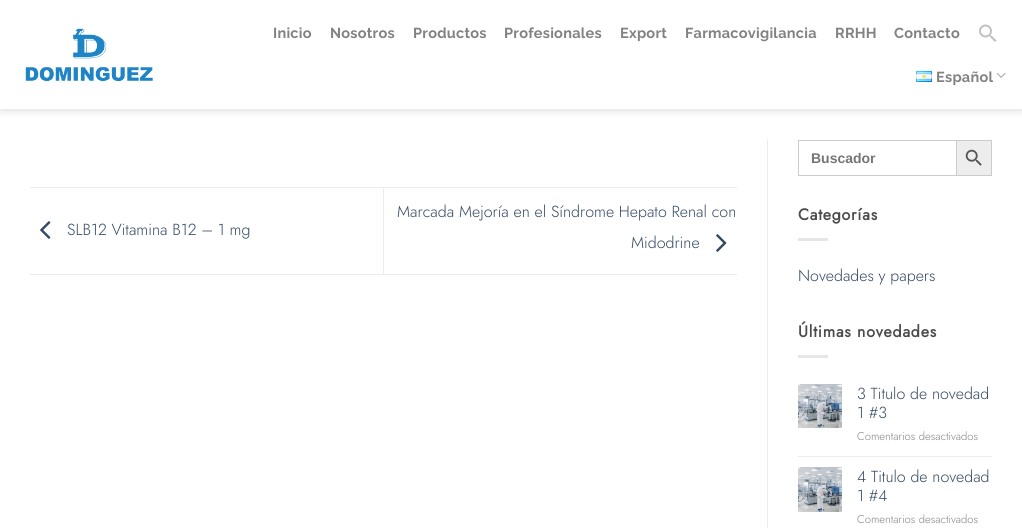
#include <cairo.h>
#include <math.h>
#include <stddef.h>


static void set_color(cairo_t *cr, unsigned color) {
    cairo_set_source_rgb(cr, (color >> 16) / 255.0, (color >> 8 & 255) / 255.0, (color & 255) / 255.0);
}

static void draw_text(cairo_t *cr, double x, double y, const char *s, const char *family, double size, int italic, int bold, unsigned color) {
    cairo_select_font_face(cr, family, italic ? CAIRO_FONT_SLANT_ITALIC : CAIRO_FONT_SLANT_NORMAL,
        bold ? CAIRO_FONT_WEIGHT_BOLD : CAIRO_FONT_WEIGHT_NORMAL);
    cairo_set_font_size(cr, size);
    set_color(cr, color);
    cairo_move_to(cr, x, y);
    cairo_show_text(cr, s);
}

static void draw_spaced(cairo_t *cr, double x, double y, const char *s, double letter, double word) {
    cairo_move_to(cr, x, y);
    while (*s) {
        char ch[5] = {0};
        int n = 0;
        do ch[n++] = *s++; while ((*s & 0xC0) == 0x80);
        cairo_show_text(cr, ch);
        cairo_rel_move_to(cr, letter + word * (*ch == ' '), 0);
    }
}

static void fill_rect(cairo_t *cr, double x, double y, double w, double h, unsigned color) {
    set_color(cr, color);
    cairo_rectangle(cr, x, y, w, h);
    cairo_fill(cr);
}

static void rounded_rect(cairo_t *cr, double x, double y, double w, double h, double r) {
    cairo_new_sub_path(cr);
    cairo_arc(cr, x + w - r, y + h - r, r, 0, M_PI / 2);
    cairo_arc(cr, x + r, y + h - r, r, M_PI / 2, M_PI);
    cairo_arc(cr, x + r, y + r, r, M_PI, 1.5 * M_PI);
    cairo_arc(cr, x + w - r, y + r, r, 1.5 * M_PI, 2 * M_PI);
    cairo_close_path(cr);
}

static void draw_shadow(cairo_t *cr, double x, double y, double w, double h, double r, double blur, double alpha) {
    cairo_push_group_with_content(cr, CAIRO_CONTENT_ALPHA);
    cairo_set_operator(cr, CAIRO_OPERATOR_SOURCE);
    for (int i = 15; i >= -15 && fmin(w, h) + blur * i / 3 > 0; i -= 2) {
        double e = blur * i / 6;
        cairo_set_source_rgba(cr, 0, 0, 0, alpha * erfc((i - 1) / 8.5) / 2);
        rounded_rect(cr, x - e, y - e, w + 2 * e, h + 2 * e, fmax(0, fmin(r + e + blur * .6, fmin(w, h) / 2 + e)));
        cairo_fill(cr);
    }
    cairo_pattern_t *soft = cairo_pop_group(cr);
    cairo_mask(cr, soft);
    cairo_pattern_destroy(soft);
}

static void draw_image(cairo_t *cr, const char *path, double x, double y, double w, double h) {
    cairo_surface_t *image = cairo_image_surface_create_from_png(path);
    cairo_save(cr);
    cairo_set_source_surface(cr, image, x, y);
    cairo_rectangle(cr, x, y, w, h);
    cairo_fill(cr);
    cairo_restore(cr);
    cairo_surface_destroy(image);
}

int main(void) {
    cairo_surface_t *surface = cairo_image_surface_create(CAIRO_FORMAT_RGB24, 1022, 528);
    cairo_t *cr = cairo_create(surface);
    cairo_font_options_t *options = cairo_font_options_create();
    cairo_font_options_set_hint_metrics(options, CAIRO_HINT_METRICS_OFF);
    cairo_font_options_set_hint_style(options, CAIRO_HINT_STYLE_NONE);
    cairo_set_font_options(cr, options);
    cairo_set_miter_limit(cr, 4);
    set_color(cr, 0xFFFFFF);
    cairo_paint(cr);
    cairo_save(cr);
    cairo_rectangle(cr, 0, 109, 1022, 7);
    cairo_clip(cr);
    set_color(cr, 0x000000);
    draw_shadow(cr, 1, 1, 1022, 109, 0, 5, 0.15);
    cairo_restore(cr);
    draw_image(cr, "assets/img1.png", 25, 28, 128, 54);
    cairo_select_font_face(cr, "Raleway", CAIRO_FONT_SLANT_NORMAL, CAIRO_FONT_WEIGHT_BOLD);
    cairo_set_font_size(cr, 14.5);
    set_color(cr, 0x828282);
    draw_spaced(cr, 273, 38, "Inicio", 0.25, 0);
    draw_spaced(cr, 330, 38, "Nosotros", 0.25, 0);
    draw_spaced(cr, 413, 38, "Productos", 0.25, 0);
    draw_spaced(cr, 504, 38, "Profesionales", 0.25, 0);
    draw_spaced(cr, 620, 38, "Export", 0.25, 0);
    draw_spaced(cr, 685, 38, "Farmacovigilancia", 0.25, 0);
    draw_spaced(cr, 835, 38, "RRHH", 0.25, 0);
    draw_spaced(cr, 894, 38, "Contacto", 0.25, 0);
    draw_image(cr, "assets/img2.png", 979, 24, 18, 18);
    draw_image(cr, "assets/img3.png", 916, 71, 16, 11);
    draw_spaced(cr, 936, 82, "Español", 0.25, 0);
    draw_image(cr, "assets/img4.png", 996, 72, 10, 6);
    fill_rect(cr, 30, 187, 707, 1, 0xECECEC);
    fill_rect(cr, 30, 274, 707, 1, 0xECECEC);
    draw_image(cr, "assets/img5.png", 40, 221, 11, 18);
    draw_text(cr, 67, 235, "SLB12 Vitamina B12 – 1 mg", "Jost Light", 16, 0, 0, 0x334862);
    fill_rect(cr, 383, 188, 1, 86, 0xECECEC);
    draw_text(cr, 397, 217, "Marcada Mejoría en el Síndrome Hepato Renal con", "Jost Light", 16, 0, 0, 0x334862);
    draw_text(cr, 631, 248, "Midodrine", "Jost Light", 16, 0, 0, 0x334862);
    draw_image(cr, "assets/img6.png", 716, 234, 11, 18);
    fill_rect(cr, 767, 139, 1, 389, 0xECECEC);
    fill_rect(cr, 798, 140, 158, 1, 0xCCCCCC);
    fill_rect(cr, 798, 175, 158, 1, 0xCCCCCC);
    fill_rect(cr, 798, 140, 1, 36, 0xCCCCCC);
    draw_text(cr, 811, 163, "Buscador", "Liberation Sans", 14, 0, 1, 0x757575);
    set_color(cr, 0xEDEDED);
    cairo_rectangle(cr, 956.5, 140.5, 35, 35);
    cairo_fill_preserve(cr);
    set_color(cr, 0xCCCCCC);
    cairo_set_line_width(cr, 1);
    cairo_stroke(cr);
    draw_image(cr, "assets/img7.png", 965, 149, 17, 17);
    cairo_select_font_face(cr, "Jost", CAIRO_FONT_SLANT_NORMAL, CAIRO_FONT_WEIGHT_BOLD);
    cairo_set_font_size(cr, 16);
    set_color(cr, 0x4C4C4C);
    draw_spaced(cr, 798, 220, "Categorías", 0.75, 0);
    fill_rect(cr, 798, 238, 30, 3, 0xE6E6E6);
    draw_text(cr, 798, 281, "Novedades y papers", "Jost Light", 16, 0, 0, 0x334862);
    cairo_select_font_face(cr, "Jost", CAIRO_FONT_SLANT_NORMAL, CAIRO_FONT_WEIGHT_BOLD);
    set_color(cr, 0x4C4C4C);
    draw_spaced(cr, 798, 337, "Últimas novedades", 0.75, 0);
    fill_rect(cr, 798, 355, 30, 3, 0xE6E6E6);
    draw_image(cr, "assets/img8.png", 798, 384, 44, 44);
    draw_text(cr, 857, 399, "3 Titulo de novedad", "Jost Light", 16, 0, 0, 0x334862);
    draw_text(cr, 857, 418, "1 #3", "Jost Light", 16, 0, 0, 0x334862);
    draw_text(cr, 857, 440, "Comentarios desactivados", "Jost Light", 11.25, 0, 0, 0x828282);
    fill_rect(cr, 798, 456, 194, 1, 0xECECEC);
    draw_image(cr, "assets/img9.png", 798, 467, 44, 45);
    draw_text(cr, 857, 482, "4 Titulo de novedad", "Jost Light", 16, 0, 0, 0x334862);
    draw_text(cr, 857, 501, "1 #4", "Jost Light", 16, 0, 0, 0x334862);
    draw_text(cr, 857, 523, "Comentarios desactivados", "Jost Light", 11.25, 0, 0, 0x828282);
    cairo_surface_write_to_png(surface, "output.png");
    cairo_font_options_destroy(options);
    cairo_destroy(cr);
    cairo_surface_destroy(surface);
    return 0;
}
